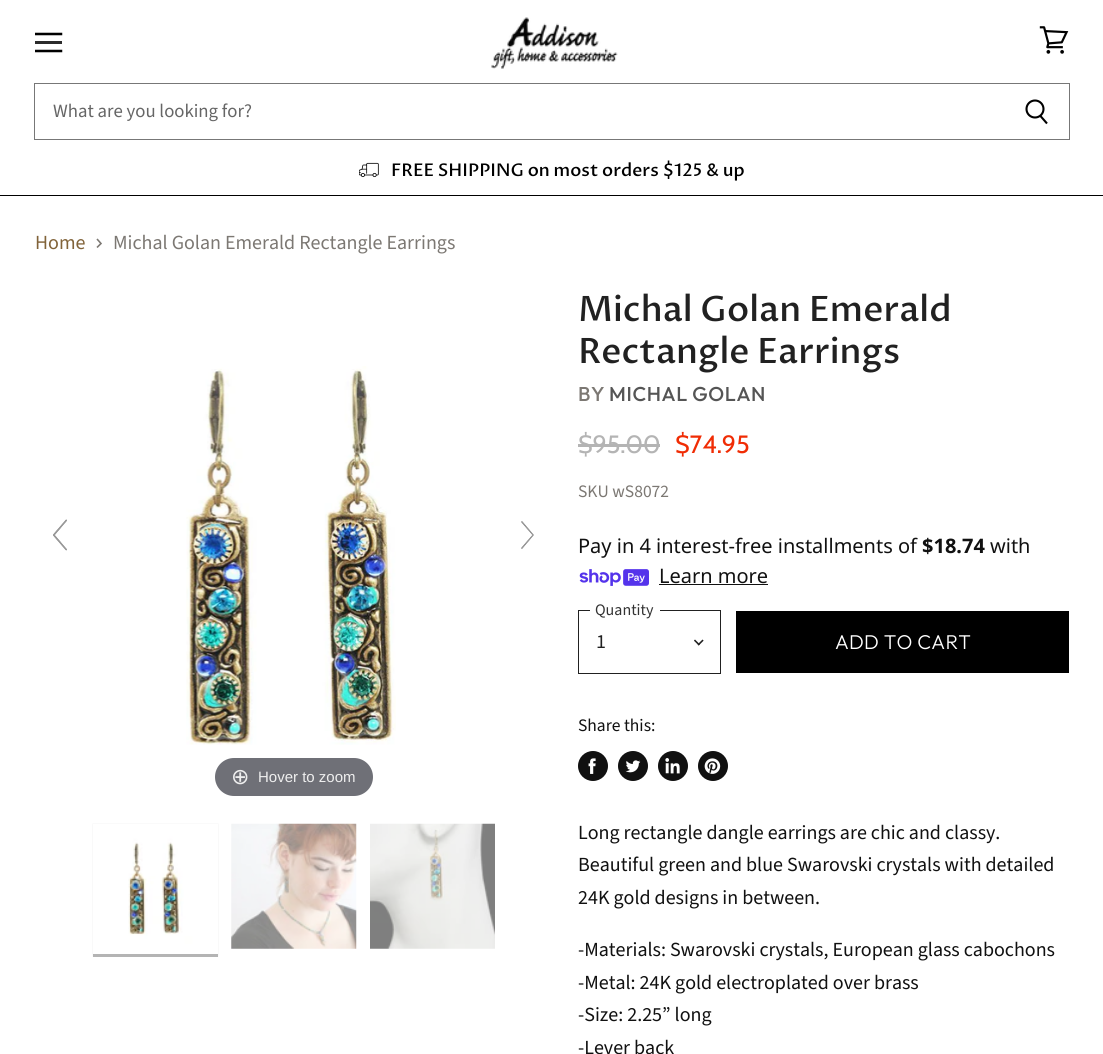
#include <cairo.h>
#include <math.h>
#include <stddef.h>


static void set_color(cairo_t *cr, unsigned color) {
    cairo_set_source_rgb(cr, (color >> 16) / 255.0, (color >> 8 & 255) / 255.0, (color & 255) / 255.0);
}

static void draw_text(cairo_t *cr, double x, double y, const char *s, const char *family, double size, int italic, int bold, unsigned color) {
    cairo_select_font_face(cr, family, italic ? CAIRO_FONT_SLANT_ITALIC : CAIRO_FONT_SLANT_NORMAL,
        bold ? CAIRO_FONT_WEIGHT_BOLD : CAIRO_FONT_WEIGHT_NORMAL);
    cairo_set_font_size(cr, size);
    set_color(cr, color);
    cairo_move_to(cr, x, y);
    cairo_show_text(cr, s);
}

static void draw_spaced(cairo_t *cr, double x, double y, const char *s, double letter, double word) {
    cairo_move_to(cr, x, y);
    while (*s) {
        char ch[5] = {0};
        int n = 0;
        do ch[n++] = *s++; while ((*s & 0xC0) == 0x80);
        cairo_show_text(cr, ch);
        cairo_rel_move_to(cr, letter + word * (*ch == ' '), 0);
    }
}

static void fill_rect(cairo_t *cr, double x, double y, double w, double h, unsigned color) {
    set_color(cr, color);
    cairo_rectangle(cr, x, y, w, h);
    cairo_fill(cr);
}

static void rounded_rect(cairo_t *cr, double x, double y, double w, double h, double r) {
    cairo_new_sub_path(cr);
    cairo_arc(cr, x + w - r, y + h - r, r, 0, M_PI / 2);
    cairo_arc(cr, x + r, y + h - r, r, M_PI / 2, M_PI);
    cairo_arc(cr, x + r, y + r, r, M_PI, 1.5 * M_PI);
    cairo_arc(cr, x + w - r, y + r, r, 1.5 * M_PI, 2 * M_PI);
    cairo_close_path(cr);
}

static void draw_shadow(cairo_t *cr, double x, double y, double w, double h, double r, double blur, double alpha) {
    cairo_push_group_with_content(cr, CAIRO_CONTENT_ALPHA);
    cairo_set_operator(cr, CAIRO_OPERATOR_SOURCE);
    for (int i = 15; i >= -15 && fmin(w, h) + blur * i / 3 > 0; i -= 2) {
        double e = blur * i / 6;
        cairo_set_source_rgba(cr, 0, 0, 0, alpha * erfc((i - 1) / 8.5) / 2);
        rounded_rect(cr, x - e, y - e, w + 2 * e, h + 2 * e, fmax(0, fmin(r + e + blur * .6, fmin(w, h) / 2 + e)));
        cairo_fill(cr);
    }
    cairo_pattern_t *soft = cairo_pop_group(cr);
    cairo_mask(cr, soft);
    cairo_pattern_destroy(soft);
}

static void draw_image(cairo_t *cr, const char *path, double x, double y, double w, double h) {
    cairo_surface_t *image = cairo_image_surface_create_from_png(path);
    cairo_save(cr);
    cairo_set_source_surface(cr, image, x, y);
    cairo_rectangle(cr, x, y, w, h);
    cairo_fill(cr);
    cairo_restore(cr);
    cairo_surface_destroy(image);
}

int main(void) {
    cairo_surface_t *surface = cairo_image_surface_create(CAIRO_FORMAT_RGB24, 1103, 1054);
    cairo_t *cr = cairo_create(surface);
    cairo_font_options_t *options = cairo_font_options_create();
    cairo_font_options_set_hint_metrics(options, CAIRO_HINT_METRICS_OFF);
    cairo_font_options_set_hint_style(options, CAIRO_HINT_STYLE_NONE);
    cairo_set_font_options(cr, options);
    cairo_set_miter_limit(cr, 4);
    set_color(cr, 0xFFFFFF);
    cairo_paint(cr);
    fill_rect(cr, 0, 195, 1103, 1, 0x000000);
    cairo_save(cr);
    cairo_rectangle(cr, 35, 31, 28, 23);
    cairo_clip(cr);
    cairo_new_path(cr);
    cairo_move_to(cr, 61, 34);
    cairo_line_to(cr, 36, 34);
    cairo_set_line_width(cr, 2.5);
    cairo_set_line_cap(cr, CAIRO_LINE_CAP_SQUARE);
    cairo_set_line_join(cr, CAIRO_LINE_JOIN_ROUND);
    cairo_stroke(cr);
    cairo_restore(cr);
    fill_rect(cr, 35, 41, 27, 3, 0x2B2B2B);
    cairo_save(cr);
    cairo_rectangle(cr, 35, 31, 28, 23);
    cairo_clip(cr);
    cairo_new_path(cr);
    cairo_move_to(cr, 61, 51);
    cairo_line_to(cr, 36, 51);
    set_color(cr, 0x000000);
    cairo_set_line_width(cr, 2.5);
    cairo_set_line_cap(cr, CAIRO_LINE_CAP_SQUARE);
    cairo_set_line_join(cr, CAIRO_LINE_JOIN_ROUND);
    cairo_stroke(cr);
    cairo_restore(cr);
    draw_image(cr, "assets/img1.png", 1039, 26, 30, 28);
    draw_image(cr, "assets/img2.png", 491, 17, 127, 52);
    fill_rect(cr, 34, 83, 1036, 1, 0x777777);
    fill_rect(cr, 1069, 83, 1, 57, 0x777777);
    fill_rect(cr, 34, 139, 1036, 1, 0x777777);
    cairo_new_path(cr);
    cairo_move_to(cr, 1047, 123.5);
    cairo_line_to(cr, 1040, 115.5);
    set_color(cr, 0x000000);
    cairo_set_line_width(cr, 2.1);
    cairo_stroke(cr);
    cairo_arc(cr, 1035, 109, 8.5, 0, 2 * M_PI);
    cairo_stroke(cr);
    fill_rect(cr, 34, 83, 1, 57, 0x777777);
    draw_text(cr, 53, 117, "What are you looking for?", "Source Sans Pro", 18.75, 0, 0, 0x666666);
    draw_image(cr, "assets/img3.png", 359, 162, 20, 16);
    draw_text(cr, 391, 176, "FREE SHIPPING on most orders $125 & up", "Proza Libre Medium", 17.5, 0, 0, 0x000000);
    draw_text(cr, 35, 249, "Home", "Source Sans Pro", 20, 0, 0, 0x816339);
    cairo_new_path(cr);
    cairo_move_to(cr, 97, 247.5);
    cairo_line_to(cr, 101, 243.5);
    cairo_line_to(cr, 97, 239);
    set_color(cr, 0x7C7873);
    cairo_set_line_width(cr, 1.6);
    cairo_stroke(cr);
    draw_text(cr, 113, 249, "Michal Golan Emerald Rectangle Earrings", "Source Sans Pro", 20, 0, 0, 0x7C7873);
    draw_image(cr, "assets/img4.png", 53, 519, 14, 32);
    draw_image(cr, "assets/img5.png", 521, 521, 13, 28);
    draw_image(cr, "assets/img6.png", 186, 366, 210, 379);
    set_color(cr, 0x6F7077);
    rounded_rect(cr, 215, 758, 158, 38, 19);
    cairo_fill(cr);
    draw_text(cr, 231, 784, "⊕", "DejaVu Sans", 22, 0, 0, 0xEEEEEE);
    draw_text(cr, 258, 782, "Hover to zoom", "Liberation Sans", 15, 0, 0, 0xEEEEEE);
    cairo_save(cr);
    cairo_set_fill_rule(cr, CAIRO_FILL_RULE_EVEN_ODD);
    cairo_new_path(cr);
    cairo_move_to(cr, 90, 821);
    cairo_line_to(cr, 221, 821);
    cairo_line_to(cr, 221, 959);
    cairo_line_to(cr, 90, 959);
    cairo_close_path(cr);
    cairo_move_to(cr, 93, 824);
    cairo_line_to(cr, 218, 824);
    cairo_line_to(cr, 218, 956);
    cairo_line_to(cr, 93, 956);
    cairo_close_path(cr);
    cairo_clip(cr);
    set_color(cr, 0x000000);
    draw_shadow(cr, 93, 824, 125, 132, 0, 0.5, 0.1);
    cairo_restore(cr);
    draw_image(cr, "assets/img7.png", 128, 824, 90, 125);
    fill_rect(cr, 93, 954, 125, 3, 0xB4B4B4);
    draw_image(cr, "assets/img8.png", 231, 823, 126, 126);
    draw_image(cr, "assets/img9.png", 370, 823, 125, 126);
    draw_text(cr, 578, 321, "Michal Golan Emerald", "Proza Libre Medium", 35, 0, 0, 0x212121);
    draw_text(cr, 578, 363, "Rectangle Earrings", "Proza Libre Medium", 35, 0, 0, 0x212121);
    cairo_select_font_face(cr, "Outfit Medium", CAIRO_FONT_SLANT_NORMAL, CAIRO_FONT_WEIGHT_NORMAL);
    cairo_set_font_size(cr, 20);
    set_color(cr, 0x7C7873);
    draw_spaced(cr, 578, 401, "BY", 0.6, 0);
    set_color(cr, 0x555555);
    draw_spaced(cr, 609, 401, "MICHAL GOLAN", 0.6, 0);
    draw_text(cr, 578, 453, "$95.00", "Cabin", 25, 0, 0, 0xB4B4B4);
    fill_rect(cr, 578, 444, 82, 3, 0xB4B4B4);
    draw_text(cr, 675, 453, "$74.95", "Cabin", 25, 0, 0, 0xF02C04);
    draw_text(cr, 578, 497, "SKU wS8072", "Source Sans Pro", 17.5, 0, 0, 0x7C7873);
    draw_text(cr, 578, 553, "Pay in 4 interest-free installments of", "Noto Sans", 20, 0, 0, 0x111111);
    draw_text(cr, 922, 553, "$18.74", "Noto Sans", 20, 0, 1, 0x111111);
    draw_text(cr, 990, 553, "with", "Noto Sans", 20, 0, 0, 0x111111);
    draw_image(cr, "assets/img10.png", 579, 569, 70, 17);
    draw_text(cr, 659, 583, "Learn more", "Noto Sans", 20, 0, 0, 0x111111);
    fill_rect(cr, 659, 584, 109, 1, 0x111111);
    cairo_rectangle(cr, 578.5, 610.5, 142, 63);
    set_color(cr, 0x212121);
    cairo_set_line_width(cr, 1);
    cairo_stroke(cr);
    fill_rect(cr, 590, 610, 70, 1, 0xFFFFFF);
    draw_text(cr, 595, 615, "Quantity", "Source Sans Pro", 16, 0, 0, 0x333333);
    draw_text(cr, 596, 648, "1", "Source Sans Pro", 20, 0, 0, 0x212121);
    draw_image(cr, "assets/img11.png", 694, 639, 10, 7);
    fill_rect(cr, 736, 611, 333, 62, 0x000000);
    cairo_select_font_face(cr, "Outfit Light", CAIRO_FONT_SLANT_NORMAL, CAIRO_FONT_WEIGHT_NORMAL);
    set_color(cr, 0xFFFFFF);
    draw_spaced(cr, 835, 649, "ADD TO CART", 0.25, 0);
    draw_text(cr, 578, 731, "Share this:", "Source Sans Pro", 17.5, 0, 0, 0x111111);
    cairo_new_path(cr);
    cairo_arc(cr, 593, 766, 15, 0, 2 * M_PI);
    cairo_fill(cr);
    draw_image(cr, "assets/img12.png", 588, 758, 8, 16);
    cairo_arc(cr, 633, 766, 15, 0, 2 * M_PI);
    cairo_fill(cr);
    draw_image(cr, "assets/img13.png", 625, 760, 16, 13);
    cairo_arc(cr, 673, 766, 15, 0, 2 * M_PI);
    cairo_fill(cr);
    draw_image(cr, "assets/img14.png", 665, 758, 15, 16);
    cairo_arc(cr, 713, 766, 15, 0, 2 * M_PI);
    cairo_fill(cr);
    draw_image(cr, "assets/img15.png", 704, 758, 17, 16);
    draw_text(cr, 578, 839, "Long rectangle dangle earrings are chic and classy.", "Source Sans Pro", 20, 0, 0, 0x111111);
    draw_text(cr, 578, 871, "Beautiful green and blue Swarovski crystals with detailed", "Source Sans Pro", 20, 0, 0, 0x111111);
    draw_text(cr, 578, 904, "24K gold designs in between.", "Source Sans Pro", 20, 0, 0, 0x111111);
    draw_text(cr, 578, 956, "-Materials: Swarovski crystals, European glass cabochons", "Source Sans Pro", 20, 0, 0, 0x111111);
    draw_text(cr, 578, 989, "-Metal: 24K gold electroplated over brass", "Source Sans Pro", 20, 0, 0, 0x111111);
    draw_text(cr, 578, 1021, "-Size: 2.25” long", "Source Sans Pro", 20, 0, 0, 0x111111);
    draw_text(cr, 578, 1054, "-Lever back", "Source Sans Pro", 20, 0, 0, 0x111111);
    cairo_surface_write_to_png(surface, "output.png");
    cairo_font_options_destroy(options);
    cairo_destroy(cr);
    cairo_surface_destroy(surface);
    return 0;
}
